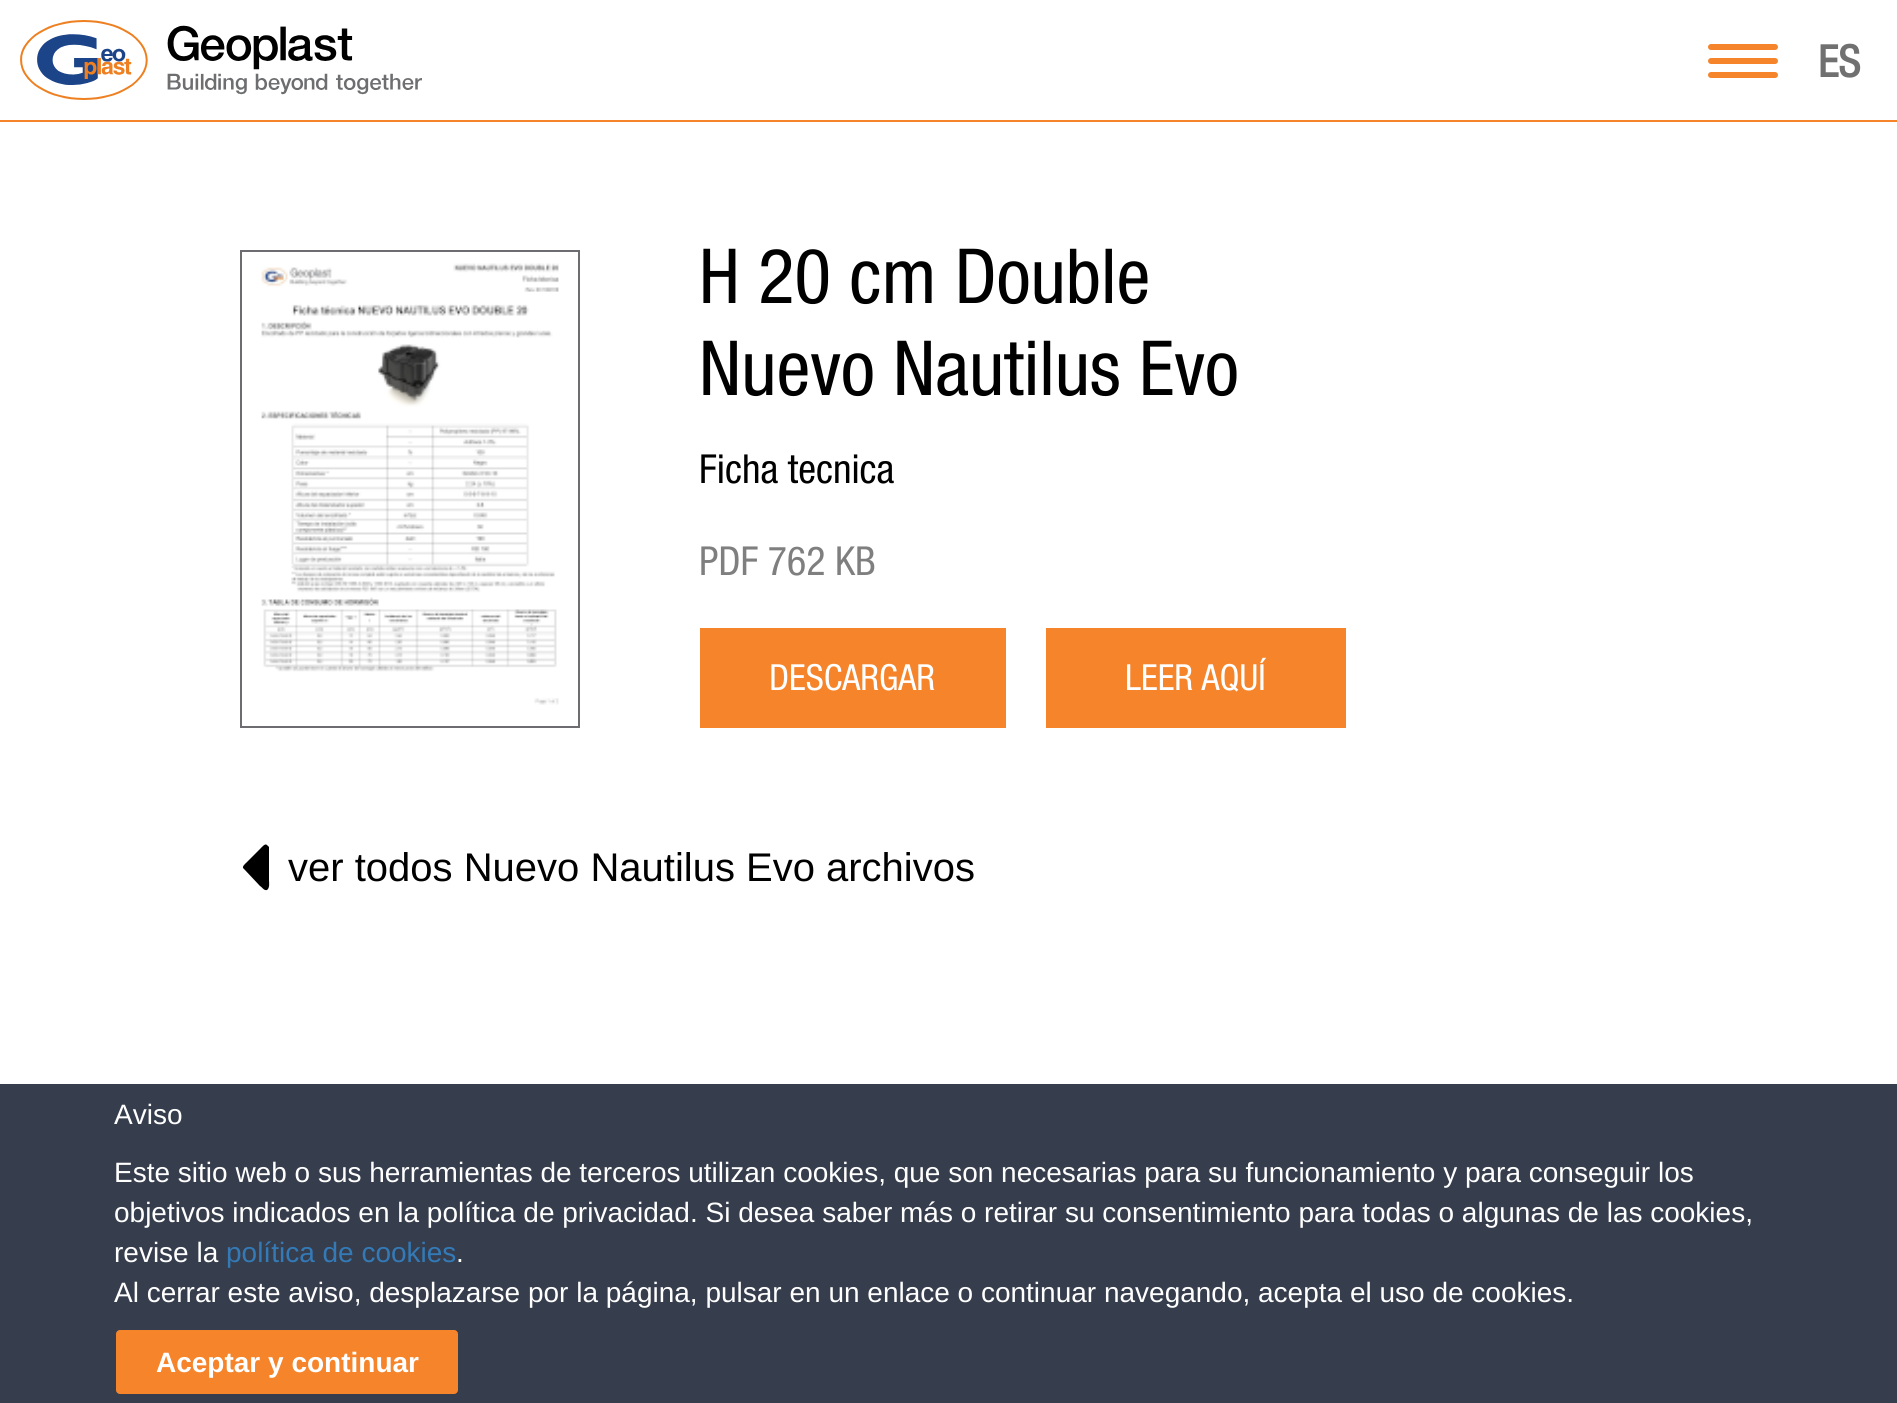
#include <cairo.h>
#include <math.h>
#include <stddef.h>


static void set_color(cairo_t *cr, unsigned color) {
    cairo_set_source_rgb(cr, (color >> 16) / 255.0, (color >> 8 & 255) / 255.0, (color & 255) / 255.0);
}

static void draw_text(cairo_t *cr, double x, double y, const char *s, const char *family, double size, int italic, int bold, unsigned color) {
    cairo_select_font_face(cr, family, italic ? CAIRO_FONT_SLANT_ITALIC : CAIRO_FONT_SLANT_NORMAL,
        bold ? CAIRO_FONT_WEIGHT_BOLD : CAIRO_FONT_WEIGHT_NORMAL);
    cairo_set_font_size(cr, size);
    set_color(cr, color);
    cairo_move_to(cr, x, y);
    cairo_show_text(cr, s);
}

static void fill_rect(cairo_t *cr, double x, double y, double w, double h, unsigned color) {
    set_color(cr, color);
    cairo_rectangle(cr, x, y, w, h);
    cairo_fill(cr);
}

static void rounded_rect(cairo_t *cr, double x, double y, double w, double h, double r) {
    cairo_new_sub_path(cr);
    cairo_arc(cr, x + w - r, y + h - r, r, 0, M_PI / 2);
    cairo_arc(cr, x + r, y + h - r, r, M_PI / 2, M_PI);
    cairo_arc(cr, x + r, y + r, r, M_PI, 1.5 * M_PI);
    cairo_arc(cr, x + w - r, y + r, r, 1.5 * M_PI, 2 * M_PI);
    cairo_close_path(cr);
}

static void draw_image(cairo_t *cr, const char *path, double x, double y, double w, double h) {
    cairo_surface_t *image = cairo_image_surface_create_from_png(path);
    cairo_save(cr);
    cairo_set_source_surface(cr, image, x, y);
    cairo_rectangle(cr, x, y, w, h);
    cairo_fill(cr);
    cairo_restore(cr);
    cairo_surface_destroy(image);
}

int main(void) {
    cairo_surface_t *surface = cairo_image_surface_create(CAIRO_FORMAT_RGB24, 1897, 1403);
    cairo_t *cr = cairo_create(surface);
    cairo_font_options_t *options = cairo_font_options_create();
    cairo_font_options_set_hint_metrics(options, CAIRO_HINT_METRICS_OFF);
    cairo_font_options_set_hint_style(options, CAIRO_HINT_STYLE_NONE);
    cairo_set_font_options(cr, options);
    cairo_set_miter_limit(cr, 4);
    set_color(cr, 0xFFFFFF);
    cairo_paint(cr);
    fill_rect(cr, 0, 120, 1897, 2, 0xF5842B);
    draw_image(cr, "assets/img1.png", 20, 20, 402, 80);
    rounded_rect(cr, 1708, 58, 70, 6, 3);
    cairo_fill(cr);
    rounded_rect(cr, 1708, 44, 70, 6, 3);
    cairo_fill(cr);
    rounded_rect(cr, 1708, 72, 70, 6, 3);
    cairo_fill(cr);
    draw_text(cr, 1818, 77, "ES", "Helvetica Neue", 44, 0, 1, 0x707070);
    cairo_rectangle(cr, 241, 251, 338, 476);
    set_color(cr, 0x6D6C71);
    cairo_stroke(cr);
    draw_image(cr, "assets/img2.png", 261, 263, 298, 442);
    draw_text(cr, 699, 303, "H 20 cm Double", "Helvetica Neue", 76, 0, 0, 0x000000);
    draw_text(cr, 699, 395, "Nuevo Nautilus Evo", "Helvetica Neue", 76, 0, 0, 0x000000);
    draw_text(cr, 699, 483, "Ficha tecnica", "Helvetica Neue", 40, 0, 0, 0x000000);
    draw_text(cr, 699, 575, "PDF 762 KB", "Helvetica Neue", 40, 0, 0, 0x7F7F7F);
    fill_rect(cr, 700, 628, 306, 100, 0xF5842B);
    draw_text(cr, 769, 690, "DESCARGAR", "Helvetica Neue", 36, 0, 0, 0xFFFFFF);
    fill_rect(cr, 1046, 628, 300, 100, 0xF5842B);
    draw_text(cr, 1125, 690, "LEER AQUÍ", "Helvetica Neue", 36, 0, 0, 0xFFFFFF);
    set_color(cr, 0x000000);
    cairo_new_path(cr);
    cairo_move_to(cr, 269, 847);
    cairo_line_to(cr, 269, 881);
    cairo_curve_to(cr, 269, 882, 270, 888, 267, 890);
    cairo_curve_to(cr, 264, 891, 262, 887, 260, 886);
    cairo_line_to(cr, 244, 869);
    cairo_curve_to(cr, 241, 867, 245, 864, 247, 862);
    cairo_line_to(cr, 260, 849);
    cairo_curve_to(cr, 262, 847, 265, 843, 267, 845);
    cairo_close_path(cr);
    cairo_fill(cr);
    draw_text(cr, 288, 881, "ver todos Nuevo Nautilus Evo archivos", "Liberation Sans", 40, 0, 0, 0x000000);
    fill_rect(cr, 0, 1084, 1897, 319, 0x363D4D);
    draw_text(cr, 114, 1124, "Aviso", "Liberation Sans", 28, 0, 0, 0xFFFFFF);
    draw_text(cr, 114, 1182, "Este sitio web o sus herramientas de terceros utilizan cookies, que son necesarias para su funcionamiento y para conseguir los", "Liberation Sans", 28, 0, 0, 0xFFFFFF);
    draw_text(cr, 114, 1222, "objetivos indicados en la política de privacidad. Si desea saber más o retirar su consentimiento para todas o algunas de las cookies,", "Liberation Sans", 28, 0, 0, 0xFFFFFF);
    draw_text(cr, 114, 1262, "revise la", "Liberation Sans", 28, 0, 0, 0xFFFFFF);
    draw_text(cr, 226, 1262, "política de cookies", "Liberation Sans", 28, 0, 0, 0x337AB7);
    draw_text(cr, 456, 1262, ".", "Liberation Sans", 28, 0, 0, 0xFFFFFF);
    draw_text(cr, 114, 1302, "Al cerrar este aviso, desplazarse por la página, pulsar en un enlace o continuar navegando, acepta el uso de cookies.", "Liberation Sans", 28, 0, 0, 0xFFFFFF);
    set_color(cr, 0xF5842B);
    rounded_rect(cr, 116, 1330, 342, 64, 4);
    cairo_fill(cr);
    draw_text(cr, 156, 1372, "Aceptar y continuar", "Liberation Sans", 28, 0, 1, 0xFFFFFF);
    cairo_surface_write_to_png(surface, "output.png");
    cairo_font_options_destroy(options);
    cairo_destroy(cr);
    cairo_surface_destroy(surface);
    return 0;
}
